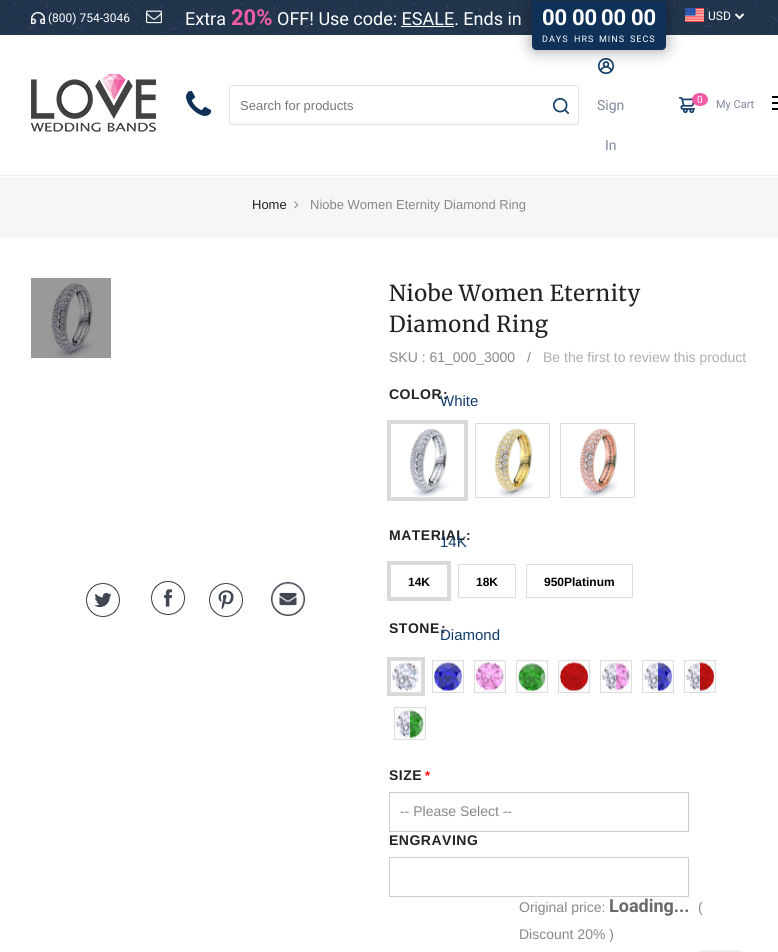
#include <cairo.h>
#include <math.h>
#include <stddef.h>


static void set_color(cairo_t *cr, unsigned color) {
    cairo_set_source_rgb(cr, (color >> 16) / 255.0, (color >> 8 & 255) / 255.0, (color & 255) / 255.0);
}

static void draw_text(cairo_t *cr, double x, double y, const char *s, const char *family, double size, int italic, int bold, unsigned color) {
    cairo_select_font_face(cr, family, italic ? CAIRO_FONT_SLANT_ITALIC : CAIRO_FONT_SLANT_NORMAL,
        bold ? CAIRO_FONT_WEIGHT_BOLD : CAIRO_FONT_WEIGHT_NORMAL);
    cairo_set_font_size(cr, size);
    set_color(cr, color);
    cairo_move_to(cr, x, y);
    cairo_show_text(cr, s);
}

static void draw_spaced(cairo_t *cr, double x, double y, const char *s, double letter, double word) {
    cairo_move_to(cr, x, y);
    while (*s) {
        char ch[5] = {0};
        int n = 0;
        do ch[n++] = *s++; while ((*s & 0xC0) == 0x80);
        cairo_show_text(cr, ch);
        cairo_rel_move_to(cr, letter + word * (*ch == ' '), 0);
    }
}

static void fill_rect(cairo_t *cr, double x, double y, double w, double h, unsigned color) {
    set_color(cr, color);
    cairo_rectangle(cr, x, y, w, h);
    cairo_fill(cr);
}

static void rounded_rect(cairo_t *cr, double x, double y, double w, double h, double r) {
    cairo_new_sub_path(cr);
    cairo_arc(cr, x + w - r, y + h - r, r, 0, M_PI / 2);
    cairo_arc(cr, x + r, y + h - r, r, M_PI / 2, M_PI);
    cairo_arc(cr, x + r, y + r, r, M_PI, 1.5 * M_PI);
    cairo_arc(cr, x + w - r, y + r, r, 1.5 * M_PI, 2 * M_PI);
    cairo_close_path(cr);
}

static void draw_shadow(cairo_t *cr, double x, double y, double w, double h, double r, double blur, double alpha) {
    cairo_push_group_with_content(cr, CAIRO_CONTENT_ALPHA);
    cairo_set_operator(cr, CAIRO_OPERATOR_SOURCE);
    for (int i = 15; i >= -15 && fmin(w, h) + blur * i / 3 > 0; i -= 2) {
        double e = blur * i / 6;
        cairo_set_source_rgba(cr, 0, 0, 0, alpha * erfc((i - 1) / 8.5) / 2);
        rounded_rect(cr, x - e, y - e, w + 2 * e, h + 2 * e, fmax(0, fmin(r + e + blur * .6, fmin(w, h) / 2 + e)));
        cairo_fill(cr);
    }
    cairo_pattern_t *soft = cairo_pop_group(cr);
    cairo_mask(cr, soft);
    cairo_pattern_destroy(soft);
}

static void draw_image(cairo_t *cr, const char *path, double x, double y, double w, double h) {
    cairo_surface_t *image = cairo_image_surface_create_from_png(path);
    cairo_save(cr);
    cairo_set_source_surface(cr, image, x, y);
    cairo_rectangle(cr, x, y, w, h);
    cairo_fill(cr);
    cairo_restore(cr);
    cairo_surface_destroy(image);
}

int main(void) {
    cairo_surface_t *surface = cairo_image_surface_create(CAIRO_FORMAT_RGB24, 778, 952);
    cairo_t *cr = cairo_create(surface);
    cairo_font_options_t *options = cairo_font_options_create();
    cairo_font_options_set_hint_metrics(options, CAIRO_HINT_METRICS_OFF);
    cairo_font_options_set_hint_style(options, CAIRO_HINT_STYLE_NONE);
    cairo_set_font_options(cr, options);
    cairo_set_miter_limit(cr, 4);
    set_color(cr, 0xFFFFFF);
    cairo_paint(cr);
    fill_rect(cr, 0, 0, 778, 35, 0x0F3158);
    draw_image(cr, "assets/img1.png", 0, 0, 778, 35);
    draw_image(cr, "assets/img2.png", 31, 12, 14, 12);
    draw_text(cr, 48, 22, "(800) 754-3046", "Roboto", 12, 0, 0, 0xFFFFFF);
    draw_image(cr, "assets/img3.png", 146, 10, 16, 14);
    draw_text(cr, 185, 25, "Extra", "Roboto", 18, 0, 0, 0xFFFFFF);
    draw_text(cr, 231, 25, "20%", "Roboto", 22, 0, 1, 0xEE5CA1);
    draw_text(cr, 277, 25, "OFF! Use code: ESALE. Ends in", "Roboto", 18, 0, 0, 0xFFFFFF);
    draw_image(cr, "assets/img4.png", 685, 8, 19, 14);
    set_color(cr, 0x000000);
    draw_shadow(cr, 532, 1, 134, 49, 4, 8, 0.39);
    set_color(cr, 0x0F3158);
    cairo_new_path(cr);
    cairo_move_to(cr, 532, 1);
    cairo_line_to(cr, 666, 1);
    cairo_line_to(cr, 666, 46);
    cairo_curve_to(cr, 666, 48, 664, 50, 662, 50);
    cairo_line_to(cr, 536, 50);
    cairo_curve_to(cr, 534, 50, 532, 48, 532, 46);
    cairo_close_path(cr);
    cairo_fill(cr);
    draw_text(cr, 542, 25, "00", "Roboto", 22, 0, 1, 0xFFFFFF);
    draw_text(cr, 572, 25, "00", "Roboto", 22, 0, 1, 0xFFFFFF);
    draw_text(cr, 601, 25, "00", "Roboto", 22, 0, 1, 0xFFFFFF);
    draw_text(cr, 631, 25, "00", "Roboto", 22, 0, 1, 0xFFFFFF);
    cairo_select_font_face(cr, "Roboto", CAIRO_FONT_SLANT_NORMAL, CAIRO_FONT_WEIGHT_NORMAL);
    cairo_set_font_size(cr, 9);
    draw_spaced(cr, 542, 42, "DAYS", 1, 0);
    draw_spaced(cr, 574, 42, "HRS", 1, 0);
    draw_spaced(cr, 599, 42, "MINS", 1, 0);
    draw_spaced(cr, 630, 42, "SECS", 1, 0);
    fill_rect(cr, 401, 26, 53, 1, 0xFFFFFF);
    cairo_new_path(cr);
    cairo_move_to(cr, 735.5, 14);
    cairo_line_to(cr, 739.5, 18);
    cairo_line_to(cr, 743.5, 14);
    cairo_stroke(cr);
    draw_text(cr, 708, 20, "USD", "Roboto", 12, 0, 0, 0xFFFFFF);
    draw_image(cr, "assets/img5.png", 31, 74, 125, 58);
    draw_image(cr, "assets/img6.png", 186, 90, 26, 26);
    rounded_rect(cr, 229.5, 85.5, 349, 39, 2.5);
    set_color(cr, 0xDAE1E7);
    cairo_set_line_width(cr, 1);
    cairo_stroke(cr);
    draw_text(cr, 240, 110, "Search for products", "Liberation Sans", 13, 0, 0, 0x777777);
    draw_image(cr, "assets/img7.png", 553, 98, 16, 16);
    draw_image(cr, "assets/img8.png", 598, 58, 16, 16);
    draw_text(cr, 597, 110, "Sign", "Roboto", 14, 0, 0, 0x7D879C);
    draw_text(cr, 605, 150, "In", "Roboto", 14, 0, 0, 0x7D879C);
    draw_image(cr, "assets/img9.png", 679, 97, 16, 16);
    set_color(cr, 0xEE5CA1);
    cairo_new_path(cr);
    cairo_move_to(cr, 700, 93);
    cairo_curve_to(cr, 704.5, 93, 708, 96, 708, 99.5);
    cairo_curve_to(cr, 708, 103, 704.5, 106, 700, 106);
    cairo_curve_to(cr, 695.5, 106, 692, 103, 692, 99.5);
    cairo_curve_to(cr, 692, 96, 695.5, 93, 700, 93);
    cairo_close_path(cr);
    cairo_fill(cr);
    draw_text(cr, 697, 103, "0", "Roboto", 10, 0, 0, 0xFFFFFF);
    draw_text(cr, 716, 108, "My Cart", "Roboto", 11, 0, 0, 0x7D879C);
    fill_rect(cr, 772, 96, 6, 2, 0x000000);
    fill_rect(cr, 772, 102, 6, 2, 0x000000);
    fill_rect(cr, 772, 108, 6, 2, 0x000000);
    fill_rect(cr, 0, 175, 778, 1, 0xECECEC);
    fill_rect(cr, 0, 177, 778, 61, 0xF6F6F8);
    draw_text(cr, 252, 209, "Home", "Liberation Sans", 13, 0, 0, 0x222222);
    draw_image(cr, "assets/img10.png", 294, 201, 5, 8);
    draw_text(cr, 310, 209, "Niobe Women Eternity Diamond Ring", "Liberation Sans", 13, 0, 0, 0x878787);
    draw_image(cr, "assets/img11.png", 31, 278, 80, 80);
    draw_image(cr, "assets/img12.png", 86, 583, 34, 34);
    draw_image(cr, "assets/img13.png", 151, 581, 34, 34);
    draw_image(cr, "assets/img14.png", 209, 583, 34, 34);
    draw_image(cr, "assets/img15.png", 271, 582, 34, 34);
    cairo_select_font_face(cr, "Merriweather", CAIRO_FONT_SLANT_NORMAL, CAIRO_FONT_WEIGHT_NORMAL);
    cairo_set_font_size(cr, 22);
    set_color(cr, 0x222222);
    draw_spaced(cr, 389, 301, "Niobe Women Eternity", 0.5, 0);
    draw_spaced(cr, 389, 332, "Diamond Ring", 0.5, 0);
    draw_text(cr, 389, 362, "SKU : 61_000_3000", "Liberation Sans", 14, 0, 0, 0x878787);
    draw_text(cr, 527, 362, "/", "Liberation Sans", 14, 0, 0, 0x878787);
    draw_text(cr, 543, 362, "Be the first to review this product", "Liberation Sans", 14, 0, 0, 0xADADAD);
    draw_text(cr, 440, 406, "White", "Liberation Sans", 15, 0, 0, 0x123D6A);
    cairo_select_font_face(cr, "Liberation Sans", CAIRO_FONT_SLANT_NORMAL, CAIRO_FONT_WEIGHT_BOLD);
    cairo_set_font_size(cr, 14);
    set_color(cr, 0x222222);
    draw_spaced(cr, 389, 399, "COLOR", 0.5, 0);
    draw_spaced(cr, 443, 399, ":", 0.5, 0);
    cairo_rectangle(cr, 388.5, 421.5, 78, 78);
    set_color(cr, 0xD9D9D9);
    cairo_set_line_width(cr, 3);
    cairo_stroke(cr);
    draw_image(cr, "assets/img16.png", 409, 428, 40, 69);
    cairo_rectangle(cr, 390.5, 423.5, 74, 74);
    set_color(cr, 0xDDDDDD);
    cairo_set_line_width(cr, 1);
    cairo_stroke(cr);
    draw_image(cr, "assets/img17.png", 494, 428, 40, 69);
    cairo_rectangle(cr, 475.5, 423.5, 74, 74);
    cairo_stroke(cr);
    draw_image(cr, "assets/img18.png", 579, 428, 40, 69);
    cairo_rectangle(cr, 560.5, 423.5, 74, 74);
    cairo_stroke(cr);
    set_color(cr, 0x222222);
    draw_spaced(cr, 389, 540, "MATERIAL", 0.5, 0);
    draw_spaced(cr, 466, 540, ":", 0.5, 0);
    draw_text(cr, 440, 547, "14K", "Liberation Sans", 15, 0, 0, 0x123D6A);
    cairo_rectangle(cr, 388.5, 562.5, 61, 37);
    set_color(cr, 0xD9D9D9);
    cairo_set_line_width(cr, 3);
    cairo_stroke(cr);
    cairo_rectangle(cr, 390.5, 564.5, 57, 33);
    set_color(cr, 0xDDDDDD);
    cairo_set_line_width(cr, 1);
    cairo_stroke(cr);
    draw_text(cr, 408, 586, "14K", "Liberation Sans", 12, 0, 1, 0x000000);
    cairo_rectangle(cr, 458.5, 564.5, 57, 33);
    set_color(cr, 0xDDDDDD);
    cairo_stroke(cr);
    draw_text(cr, 476, 586, "18K", "Liberation Sans", 12, 0, 1, 0x000000);
    cairo_rectangle(cr, 526.5, 564.5, 106, 33);
    set_color(cr, 0xDDDDDD);
    cairo_stroke(cr);
    draw_text(cr, 544, 586, "950Platinum", "Liberation Sans", 12, 0, 1, 0x000000);
    cairo_set_font_size(cr, 14);
    set_color(cr, 0x222222);
    draw_spaced(cr, 389, 633, "STONE", 0.5, 0);
    draw_text(cr, 440, 640, "Diamond", "Liberation Sans", 15, 0, 0, 0x123D6A);
    cairo_select_font_face(cr, "Liberation Sans", CAIRO_FONT_SLANT_NORMAL, CAIRO_FONT_WEIGHT_BOLD);
    cairo_set_font_size(cr, 14);
    set_color(cr, 0x222222);
    draw_spaced(cr, 441, 633, ":", 0.5, 0);
    cairo_rectangle(cr, 388.5, 658.5, 35, 36);
    set_color(cr, 0xD9D9D9);
    cairo_set_line_width(cr, 3);
    cairo_stroke(cr);
    draw_image(cr, "assets/img19.png", 391, 661, 30, 31);
    cairo_rectangle(cr, 390.5, 660.5, 31, 32);
    set_color(cr, 0xDDDDDD);
    cairo_set_line_width(cr, 1);
    cairo_stroke(cr);
    draw_image(cr, "assets/img20.png", 433, 661, 30, 31);
    cairo_rectangle(cr, 432.5, 660.5, 31, 32);
    cairo_stroke(cr);
    draw_image(cr, "assets/img21.png", 475, 661, 30, 31);
    cairo_rectangle(cr, 474.5, 660.5, 31, 32);
    cairo_stroke(cr);
    draw_image(cr, "assets/img22.png", 517, 661, 30, 31);
    cairo_rectangle(cr, 516.5, 660.5, 31, 32);
    cairo_stroke(cr);
    draw_image(cr, "assets/img23.png", 559, 661, 30, 31);
    cairo_rectangle(cr, 558.5, 660.5, 31, 32);
    cairo_stroke(cr);
    draw_image(cr, "assets/img24.png", 601, 661, 30, 31);
    cairo_rectangle(cr, 600.5, 660.5, 31, 32);
    cairo_stroke(cr);
    draw_image(cr, "assets/img25.png", 643, 661, 30, 31);
    cairo_rectangle(cr, 642.5, 660.5, 31, 32);
    cairo_stroke(cr);
    draw_image(cr, "assets/img26.png", 685, 661, 30, 31);
    cairo_rectangle(cr, 684.5, 660.5, 31, 32);
    cairo_stroke(cr);
    draw_image(cr, "assets/img27.png", 395, 708, 30, 31);
    cairo_rectangle(cr, 394.5, 707.5, 31, 32);
    cairo_stroke(cr);
    set_color(cr, 0x222222);
    draw_spaced(cr, 389, 780, "SIZE", 0.5, 0);
    cairo_set_font_size(cr, 13);
    set_color(cr, 0xFF0000);
    draw_spaced(cr, 425, 780, "*", 0.5, 0);
    cairo_rectangle(cr, 389.5, 792.5, 299, 39);
    set_color(cr, 0xCCCCCC);
    cairo_stroke(cr);
    draw_text(cr, 400, 816, "-- Please Select --", "Liberation Sans", 14, 0, 0, 0x878787);
    cairo_select_font_face(cr, "Liberation Sans", CAIRO_FONT_SLANT_NORMAL, CAIRO_FONT_WEIGHT_BOLD);
    set_color(cr, 0x222222);
    draw_spaced(cr, 389, 845, "ENGRAVING", 0.5, 0);
    cairo_rectangle(cr, 389.5, 857.5, 299, 39);
    set_color(cr, 0xCCCCCC);
    cairo_stroke(cr);
    draw_text(cr, 519, 912, "Original price:", "Liberation Sans", 14, 0, 0, 0x878787);
    draw_text(cr, 609, 912, "Loading...", "Roboto", 18, 0, 1, 0x696969);
    draw_text(cr, 698, 912, "(", "Liberation Sans", 14, 0, 0, 0x878787);
    draw_text(cr, 519, 939, "Discount 20% )", "Liberation Sans", 14, 0, 0, 0x878787);
    set_color(cr, 0x000000);
    draw_shadow(cr, 698, 952, 45, 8, 3, 1.5, 0.2);
    cairo_surface_write_to_png(surface, "output.png");
    cairo_font_options_destroy(options);
    cairo_destroy(cr);
    cairo_surface_destroy(surface);
    return 0;
}
